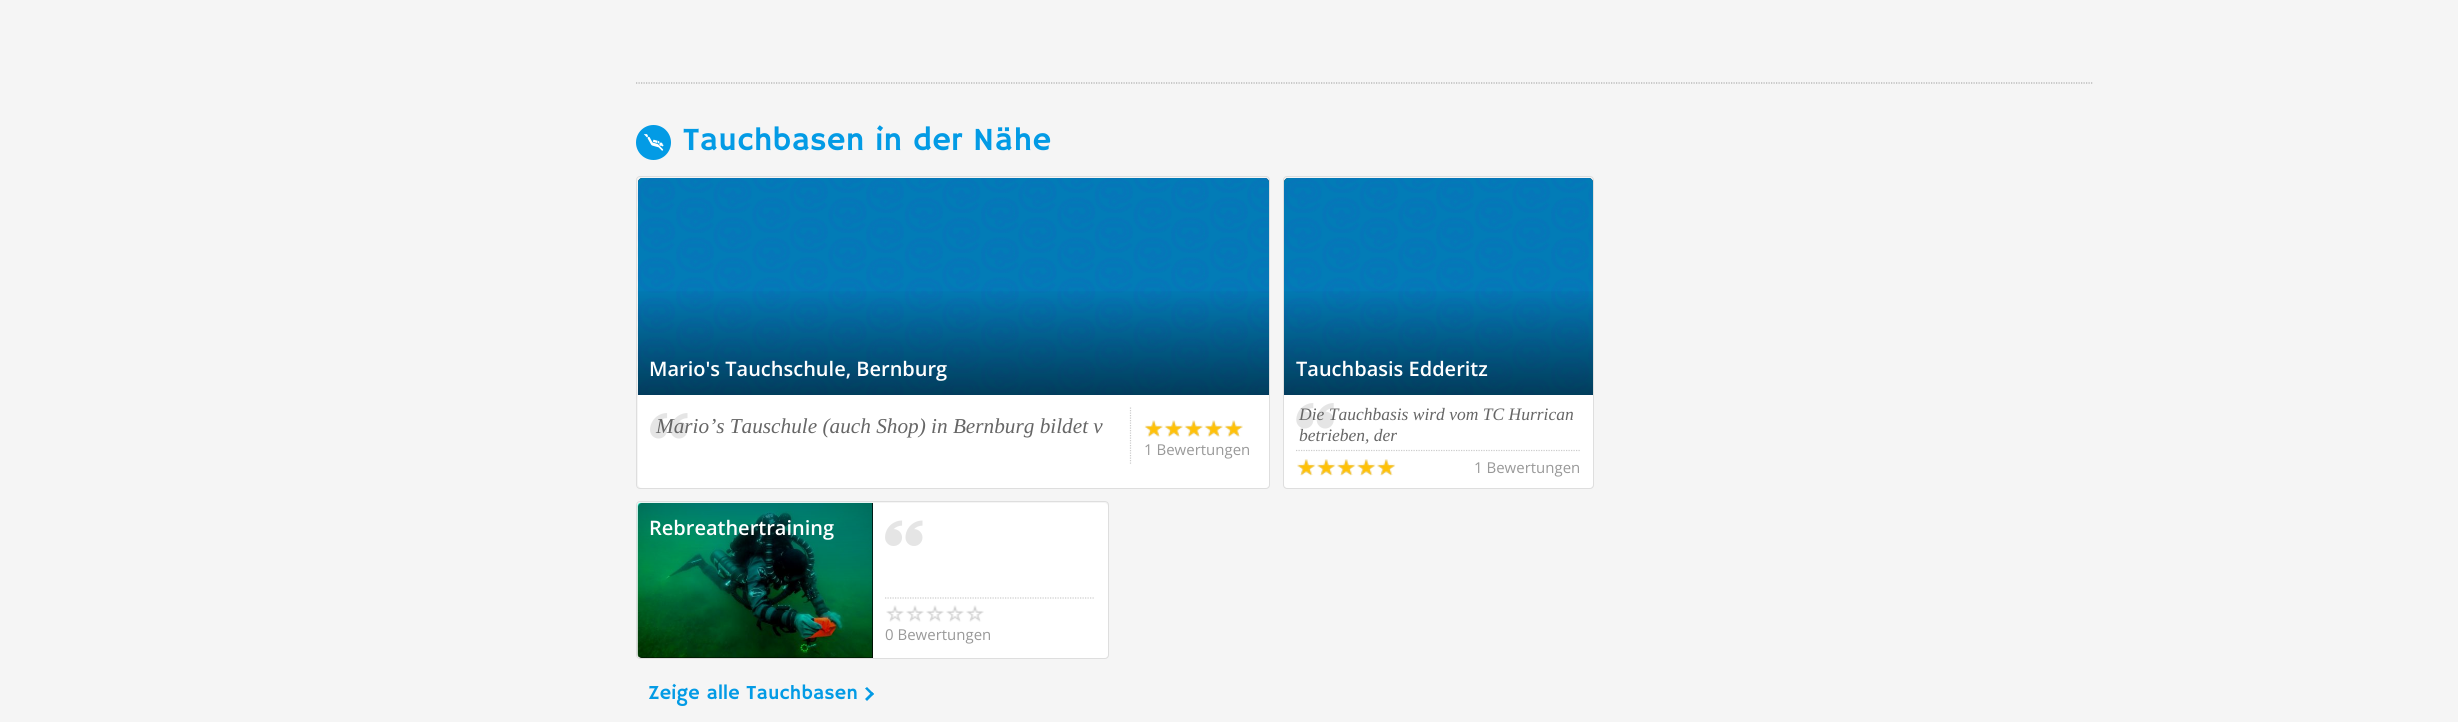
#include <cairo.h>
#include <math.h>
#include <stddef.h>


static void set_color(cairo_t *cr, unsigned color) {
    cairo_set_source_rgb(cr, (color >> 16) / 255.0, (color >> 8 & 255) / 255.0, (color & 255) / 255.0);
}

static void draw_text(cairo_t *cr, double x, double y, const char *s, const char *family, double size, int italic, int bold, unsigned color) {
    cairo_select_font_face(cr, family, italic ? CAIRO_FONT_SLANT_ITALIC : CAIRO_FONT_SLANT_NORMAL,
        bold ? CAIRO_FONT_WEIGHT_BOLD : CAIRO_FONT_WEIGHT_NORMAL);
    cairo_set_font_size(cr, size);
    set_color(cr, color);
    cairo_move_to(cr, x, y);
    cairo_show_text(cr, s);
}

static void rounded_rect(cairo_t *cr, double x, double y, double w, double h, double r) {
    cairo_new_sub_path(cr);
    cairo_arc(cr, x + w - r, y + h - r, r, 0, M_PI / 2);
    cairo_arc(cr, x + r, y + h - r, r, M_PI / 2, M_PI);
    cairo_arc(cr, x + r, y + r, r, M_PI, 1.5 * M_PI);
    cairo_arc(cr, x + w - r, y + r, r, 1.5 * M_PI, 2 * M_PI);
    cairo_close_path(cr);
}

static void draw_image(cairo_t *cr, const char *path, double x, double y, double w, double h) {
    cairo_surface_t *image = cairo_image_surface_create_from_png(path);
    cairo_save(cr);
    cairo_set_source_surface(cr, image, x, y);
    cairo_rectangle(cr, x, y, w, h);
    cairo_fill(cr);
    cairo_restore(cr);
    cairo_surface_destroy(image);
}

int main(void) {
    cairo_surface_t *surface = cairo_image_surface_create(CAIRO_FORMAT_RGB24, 2458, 722);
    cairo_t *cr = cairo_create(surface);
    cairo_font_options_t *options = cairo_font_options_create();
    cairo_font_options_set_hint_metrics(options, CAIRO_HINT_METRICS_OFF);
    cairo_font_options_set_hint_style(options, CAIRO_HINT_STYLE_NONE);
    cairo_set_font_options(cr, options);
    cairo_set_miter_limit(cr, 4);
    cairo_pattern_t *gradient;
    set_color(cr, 0xF5F5F5);
    cairo_paint(cr);
    cairo_new_path(cr);
    cairo_move_to(cr, 636, 83);
    cairo_line_to(cr, 2092.5, 83);
    set_color(cr, 0xACACAC);
    cairo_set_line_width(cr, 1.2);
    cairo_set_dash(cr, (double[]){1.25, 1.25}, 2, 0);
    cairo_stroke(cr);
    set_color(cr, 0x039BE5);
    cairo_arc(cr, 653.5, 142.5, 17.5, 0, 2 * M_PI);
    cairo_fill(cr);
    draw_image(cr, "assets/img1.png", 643, 134, 21, 17);
    draw_text(cr, 683, 150, "Tauchbasen in der Nähe", "Hammersmith One", 32.5, 0, 0, 0x039BE5);
    rounded_rect(cr, 636.5, 176.5, 633, 312, 3.5);
    set_color(cr, 0xDEDEDE);
    cairo_set_line_width(cr, 1);
    cairo_set_dash(cr, NULL, 0, 0);
    cairo_stroke(cr);
    set_color(cr, 0xFFFFFF);
    rounded_rect(cr, 638, 178, 631, 310, 4);
    cairo_fill(cr);
    set_color(cr, 0x000000);
    cairo_new_path(cr);
    cairo_move_to(cr, 642, 178);
    cairo_line_to(cr, 1265, 178);
    cairo_curve_to(cr, 1267, 178, 1269, 180, 1269, 182);
    cairo_line_to(cr, 1269, 395);
    cairo_line_to(cr, 638, 395);
    cairo_line_to(cr, 638, 182);
    cairo_curve_to(cr, 638, 180, 640, 178, 642, 178);
    cairo_close_path(cr);
    cairo_fill(cr);
    cairo_set_source_rgba(cr, 0.012, 0.608, 0.898, 0.8);
    cairo_new_path(cr);
    cairo_move_to(cr, 642, 178);
    cairo_line_to(cr, 1265, 178);
    cairo_curve_to(cr, 1267, 178, 1269, 180, 1269, 182);
    cairo_line_to(cr, 1269, 395);
    cairo_line_to(cr, 638, 395);
    cairo_line_to(cr, 638, 182);
    cairo_curve_to(cr, 638, 180, 640, 178, 642, 178);
    cairo_close_path(cr);
    cairo_fill(cr);
    draw_image(cr, "assets/img2.png", 637, 178, 632, 217);
    gradient = cairo_pattern_create_linear(953, 395, 953, 286);
    cairo_pattern_add_color_stop_rgba(gradient, 0, 0, 0, 0, 0.5);
    cairo_pattern_add_color_stop_rgba(gradient, 1, 0, 0, 0, 0);
    cairo_set_source(cr, gradient);
    cairo_pattern_destroy(gradient);
    cairo_rectangle(cr, 638, 291, 631, 104);
    cairo_fill(cr);
    draw_text(cr, 649, 376, "Mario's Tauchschule, Bernburg", "Open Sans SemiBold", 20, 0, 0, 0xFFFFFF);
    cairo_new_path(cr);
    cairo_move_to(cr, 1130.5, 407.5);
    cairo_line_to(cr, 1130.5, 464);
    set_color(cr, 0xCCCCCC);
    cairo_set_line_width(cr, 1.2);
    cairo_set_dash(cr, (double[]){1.25, 1.25}, 2, 0);
    cairo_stroke(cr);
    draw_image(cr, "assets/img3.png", 650, 413, 38, 26);
    draw_text(cr, 656, 433, "Mario’s Tauschule (auch Shop) in Bernburg bildet v", "Liberation Serif", 21.25, 1, 0, 0x666666);
    draw_image(cr, "assets/img4.png", 1145, 420, 98, 17);
    draw_image(cr, "assets/img5.png", 1144, 420, 99, 17);
    draw_text(cr, 1144, 455, "1 Bewertungen", "Open Sans", 15, 0, 0, 0x999999);
    rounded_rect(cr, 1283.5, 176.5, 310, 312, 3.5);
    set_color(cr, 0xDEDEDE);
    cairo_set_line_width(cr, 1);
    cairo_set_dash(cr, NULL, 0, 0);
    cairo_stroke(cr);
    set_color(cr, 0xFFFFFF);
    rounded_rect(cr, 1284, 178, 309, 310, 4);
    cairo_fill(cr);
    set_color(cr, 0x000000);
    cairo_new_path(cr);
    cairo_move_to(cr, 1288, 178);
    cairo_line_to(cr, 1589, 178);
    cairo_curve_to(cr, 1591, 178, 1593, 180, 1593, 182);
    cairo_line_to(cr, 1593, 395);
    cairo_line_to(cr, 1284, 395);
    cairo_line_to(cr, 1284, 182);
    cairo_curve_to(cr, 1284, 180, 1286, 178, 1288, 178);
    cairo_close_path(cr);
    cairo_fill(cr);
    cairo_set_source_rgba(cr, 0.012, 0.608, 0.898, 0.8);
    cairo_new_path(cr);
    cairo_move_to(cr, 1288, 178);
    cairo_line_to(cr, 1589, 178);
    cairo_curve_to(cr, 1591, 178, 1593, 180, 1593, 182);
    cairo_line_to(cr, 1593, 395);
    cairo_line_to(cr, 1284, 395);
    cairo_line_to(cr, 1284, 182);
    cairo_curve_to(cr, 1284, 180, 1286, 178, 1288, 178);
    cairo_close_path(cr);
    cairo_fill(cr);
    draw_image(cr, "assets/img6.png", 1284, 178, 308, 217);
    gradient = cairo_pattern_create_linear(1438, 395, 1438, 286);
    cairo_pattern_add_color_stop_rgba(gradient, 0, 0, 0, 0, 0.5);
    cairo_pattern_add_color_stop_rgba(gradient, 1, 0, 0, 0, 0);
    cairo_set_source(cr, gradient);
    cairo_pattern_destroy(gradient);
    cairo_rectangle(cr, 1284, 291, 309, 104);
    cairo_fill(cr);
    draw_text(cr, 1296, 376, "Tauchbasis Edderitz", "Open Sans SemiBold", 20, 0, 0, 0xFFFFFF);
    cairo_new_path(cr);
    cairo_move_to(cr, 1296, 450.5);
    cairo_line_to(cr, 1580, 450.5);
    set_color(cr, 0xCCCCCC);
    cairo_set_line_width(cr, 1.2);
    cairo_set_dash(cr, (double[]){1.25, 1.25}, 2, 0);
    cairo_stroke(cr);
    draw_image(cr, "assets/img7.png", 1296, 403, 38, 26);
    draw_text(cr, 1299, 420, "Die Tauchbasis wird vom TC Hurrican", "Liberation Serif", 17.5, 1, 0, 0x666666);
    draw_text(cr, 1299, 441, "betrieben, der", "Liberation Serif", 17.5, 1, 0, 0x666666);
    draw_image(cr, "assets/img8.png", 1297, 459, 98, 17);
    draw_image(cr, "assets/img9.png", 1297, 459, 99, 17);
    draw_text(cr, 1474, 473, "1 Bewertungen", "Open Sans", 15, 0, 0, 0x999999);
    rounded_rect(cr, 636.5, 501.5, 472, 157, 3.5);
    set_color(cr, 0xDEDEDE);
    cairo_set_line_width(cr, 1);
    cairo_set_dash(cr, NULL, 0, 0);
    cairo_stroke(cr);
    set_color(cr, 0xFFFFFF);
    rounded_rect(cr, 638, 503, 470, 155, 4);
    cairo_fill(cr);
    set_color(cr, 0x000000);
    cairo_new_path(cr);
    cairo_move_to(cr, 642, 503);
    cairo_line_to(cr, 873, 503);
    cairo_line_to(cr, 873, 658);
    cairo_line_to(cr, 642, 658);
    cairo_curve_to(cr, 640, 658, 638, 656, 638, 654);
    cairo_line_to(cr, 638, 507);
    cairo_curve_to(cr, 638, 505, 640, 503, 642, 503);
    cairo_close_path(cr);
    cairo_fill(cr);
    draw_image(cr, "assets/img10.png", 637, 502, 236, 156);
    gradient = cairo_pattern_create_linear(755, 503, 755, 580);
    cairo_pattern_add_color_stop_rgba(gradient, 0, 0, 0, 0, 0.4);
    cairo_pattern_add_color_stop_rgba(gradient, 1, 0, 0, 0, 0);
    cairo_set_source(cr, gradient);
    cairo_pattern_destroy(gradient);
    cairo_new_path(cr);
    cairo_move_to(cr, 642, 503);
    cairo_line_to(cr, 873, 503);
    cairo_line_to(cr, 873, 580);
    cairo_line_to(cr, 638, 580);
    cairo_line_to(cr, 638, 507);
    cairo_curve_to(cr, 638, 505, 640, 503, 642, 503);
    cairo_close_path(cr);
    cairo_fill(cr);
    draw_text(cr, 649, 535, "Rebreathertraining", "Open Sans SemiBold", 20, 0, 0, 0xFFFFFF);
    cairo_new_path(cr);
    cairo_move_to(cr, 885, 598);
    cairo_line_to(cr, 1095, 598);
    set_color(cr, 0xCCCCCC);
    cairo_set_line_width(cr, 1.2);
    cairo_set_dash(cr, (double[]){1.25, 1.25}, 2, 0);
    cairo_stroke(cr);
    draw_image(cr, "assets/img11.png", 885, 520, 38, 26);
    draw_image(cr, "assets/img12.png", 886, 605, 98, 17);
    draw_text(cr, 885, 640, "0 Bewertungen", "Open Sans", 15, 0, 0, 0x999999);
    draw_text(cr, 648, 699, "Zeige alle Tauchbasen", "Hammersmith One", 20, 0, 0, 0x039BE5);
    cairo_new_path(cr);
    cairo_move_to(cr, 867, 687);
    cairo_line_to(cr, 874, 694);
    cairo_line_to(cr, 872, 695.5);
    cairo_line_to(cr, 865, 688.5);
    cairo_close_path(cr);
    cairo_fill(cr);
    cairo_new_path(cr);
    cairo_move_to(cr, 872, 692);
    cairo_line_to(cr, 874, 694);
    cairo_line_to(cr, 867, 701);
    cairo_line_to(cr, 865, 699);
    cairo_close_path(cr);
    cairo_fill(cr);
    cairo_surface_write_to_png(surface, "output.png");
    cairo_font_options_destroy(options);
    cairo_destroy(cr);
    cairo_surface_destroy(surface);
    return 0;
}
